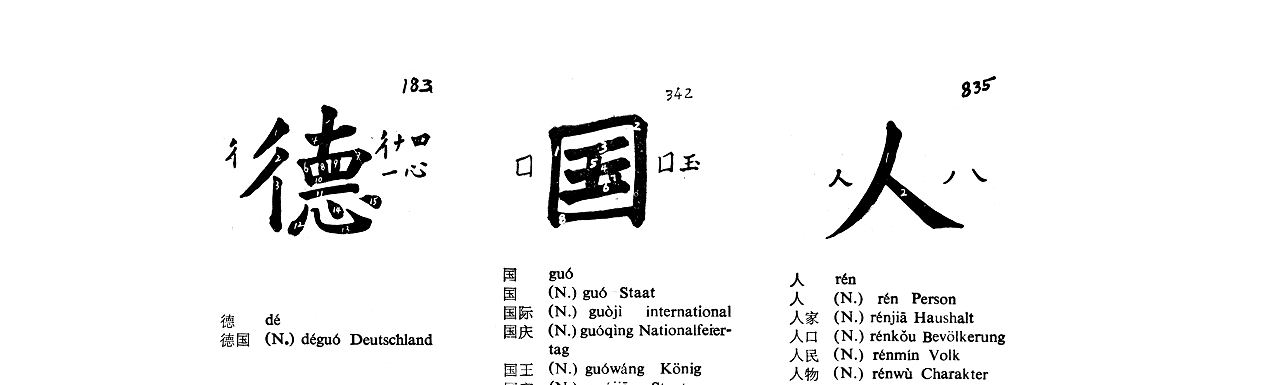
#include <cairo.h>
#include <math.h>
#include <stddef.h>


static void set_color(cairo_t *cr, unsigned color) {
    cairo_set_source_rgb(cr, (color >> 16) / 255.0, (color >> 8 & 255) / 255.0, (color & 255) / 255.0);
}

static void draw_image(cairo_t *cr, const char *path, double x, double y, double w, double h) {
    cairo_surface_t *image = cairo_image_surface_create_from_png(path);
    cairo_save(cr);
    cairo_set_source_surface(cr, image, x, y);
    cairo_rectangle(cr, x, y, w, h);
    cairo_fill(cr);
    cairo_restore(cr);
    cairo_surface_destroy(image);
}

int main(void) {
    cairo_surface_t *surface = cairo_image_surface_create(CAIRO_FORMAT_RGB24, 1263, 385);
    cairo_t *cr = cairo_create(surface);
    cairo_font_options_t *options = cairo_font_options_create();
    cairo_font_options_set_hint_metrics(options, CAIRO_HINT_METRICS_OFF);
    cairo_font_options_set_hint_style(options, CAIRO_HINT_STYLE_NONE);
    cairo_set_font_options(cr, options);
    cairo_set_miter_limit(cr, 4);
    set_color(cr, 0xFFFFFF);
    cairo_paint(cr);
    draw_image(cr, "assets/img1.png", 223, 70, 210, 168);
    draw_image(cr, "assets/img2.png", 515, 72, 185, 157);
    draw_image(cr, "assets/img3.png", 791, 76, 205, 163);
    draw_image(cr, "assets/img4.png", 220, 301, 213, 65);
    draw_image(cr, "assets/img5.png", 495, 267, 237, 118);
    draw_image(cr, "assets/img6.png", 789, 272, 217, 109);
    cairo_surface_write_to_png(surface, "output.png");
    cairo_font_options_destroy(options);
    cairo_destroy(cr);
    cairo_surface_destroy(surface);
    return 0;
}
